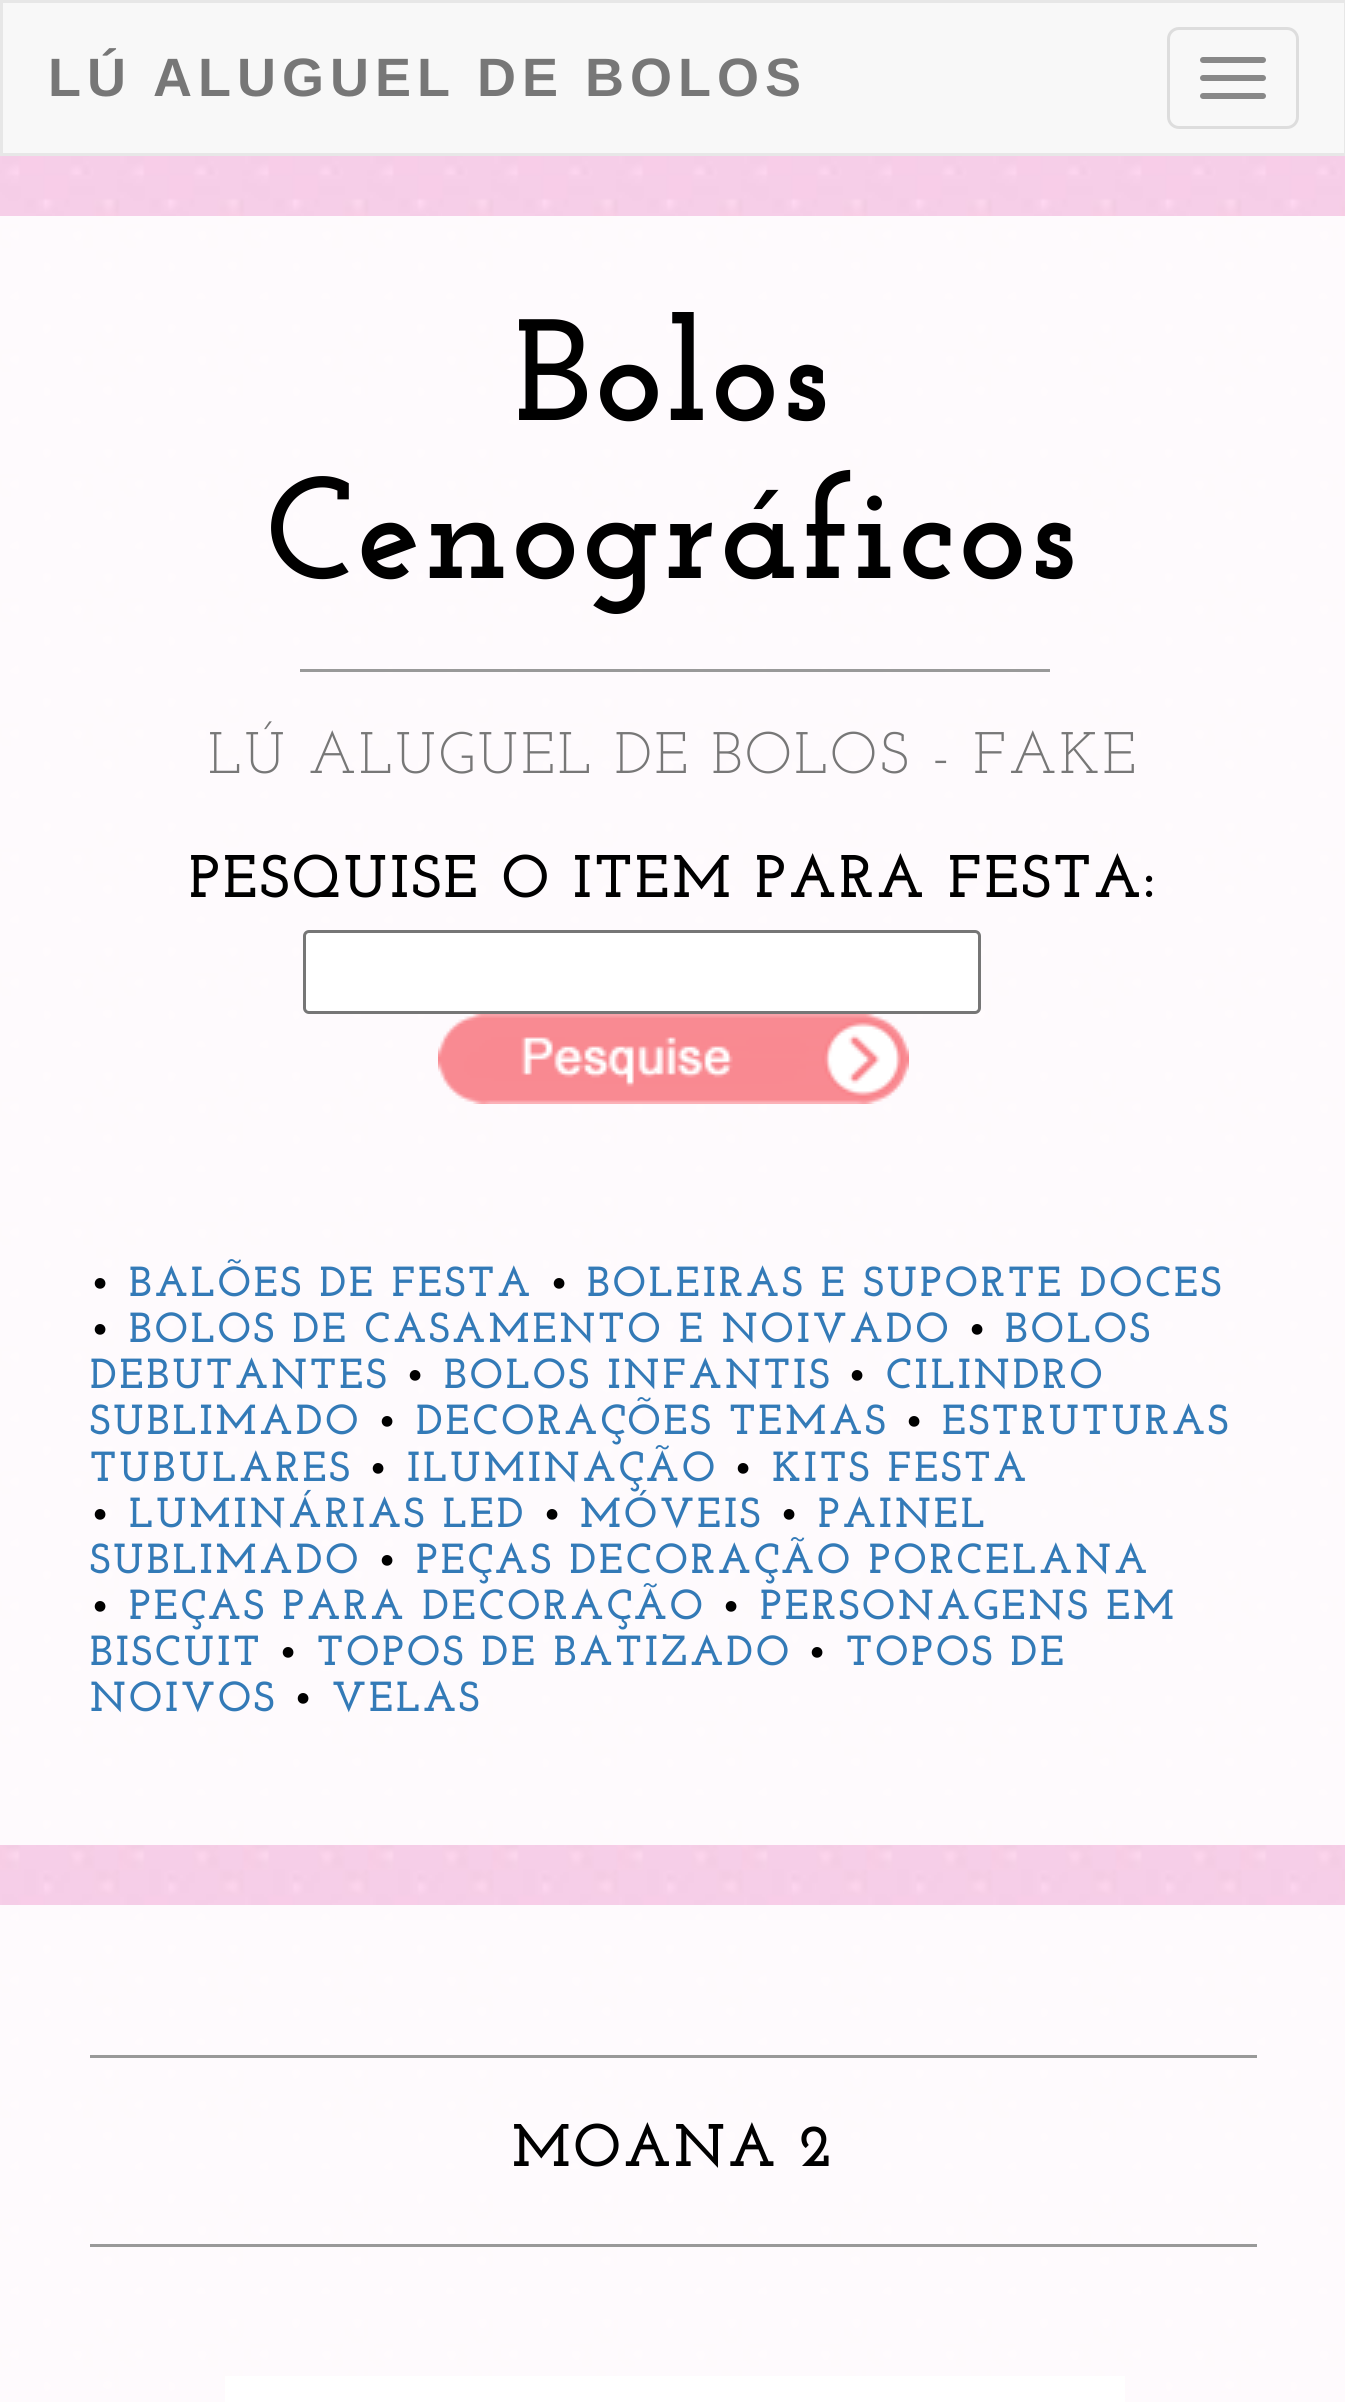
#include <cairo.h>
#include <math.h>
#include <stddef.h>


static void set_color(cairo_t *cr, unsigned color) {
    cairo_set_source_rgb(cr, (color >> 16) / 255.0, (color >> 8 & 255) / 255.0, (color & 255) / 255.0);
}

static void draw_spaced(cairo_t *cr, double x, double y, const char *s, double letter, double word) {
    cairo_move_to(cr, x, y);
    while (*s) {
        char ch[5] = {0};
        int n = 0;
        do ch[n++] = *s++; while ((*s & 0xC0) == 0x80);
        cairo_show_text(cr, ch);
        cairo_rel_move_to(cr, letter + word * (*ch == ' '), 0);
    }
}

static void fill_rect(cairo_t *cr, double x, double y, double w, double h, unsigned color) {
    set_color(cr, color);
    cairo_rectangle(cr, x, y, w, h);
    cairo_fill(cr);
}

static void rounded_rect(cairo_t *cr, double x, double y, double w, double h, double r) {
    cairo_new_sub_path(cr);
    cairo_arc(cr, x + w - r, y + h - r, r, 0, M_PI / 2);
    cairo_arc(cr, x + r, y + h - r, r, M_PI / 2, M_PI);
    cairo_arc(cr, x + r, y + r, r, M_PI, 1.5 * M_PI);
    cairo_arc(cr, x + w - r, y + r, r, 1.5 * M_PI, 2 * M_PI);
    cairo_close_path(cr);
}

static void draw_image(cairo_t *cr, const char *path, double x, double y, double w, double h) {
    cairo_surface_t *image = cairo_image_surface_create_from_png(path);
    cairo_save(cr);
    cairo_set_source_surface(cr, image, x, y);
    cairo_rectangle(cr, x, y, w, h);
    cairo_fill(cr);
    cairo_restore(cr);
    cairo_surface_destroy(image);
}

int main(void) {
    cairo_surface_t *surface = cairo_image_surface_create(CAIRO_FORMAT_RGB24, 1345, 2402);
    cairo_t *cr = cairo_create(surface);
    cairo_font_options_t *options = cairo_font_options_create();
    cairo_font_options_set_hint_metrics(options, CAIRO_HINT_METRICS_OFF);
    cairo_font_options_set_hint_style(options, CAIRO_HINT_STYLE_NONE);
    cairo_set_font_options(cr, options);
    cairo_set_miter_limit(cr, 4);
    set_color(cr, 0xFFFFFF);
    cairo_paint(cr);
    draw_image(cr, "assets/img1.png", 0, 156, 1345, 2246);
    set_color(cr, 0xF8F8F8);
    cairo_rectangle(cr, 1.5, 1.5, 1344, 153);
    cairo_fill_preserve(cr);
    set_color(cr, 0xE7E7E7);
    cairo_set_line_width(cr, 3);
    cairo_stroke(cr);
    cairo_select_font_face(cr, "Liberation Sans", CAIRO_FONT_SLANT_NORMAL, CAIRO_FONT_WEIGHT_BOLD);
    cairo_set_font_size(cr, 54);
    set_color(cr, 0x777777);
    draw_spaced(cr, 48, 96, "LÚ ALUGUEL DE BOLOS", 6, 0);
    rounded_rect(cr, 1168.5, 28.5, 129, 99, 10.5);
    set_color(cr, 0xDDDDDD);
    cairo_stroke(cr);
    set_color(cr, 0x888888);
    rounded_rect(cr, 1200, 57, 66, 6, 3);
    cairo_fill(cr);
    rounded_rect(cr, 1200, 75, 66, 6, 3);
    cairo_fill(cr);
    rounded_rect(cr, 1200, 93, 66, 6, 3);
    cairo_fill(cr);
    cairo_set_source_rgba(cr, 1, 1, 1, 0.9);
    cairo_rectangle(cr, 0, 216, 1345, 1629);
    cairo_fill(cr);
    cairo_select_font_face(cr, "Josefin Slab", CAIRO_FONT_SLANT_NORMAL, CAIRO_FONT_WEIGHT_BOLD);
    cairo_set_font_size(cr, 144);
    set_color(cr, 0x000000);
    draw_spaced(cr, 514, 420, "Bolos", 3, 0);
    draw_spaced(cr, 266, 578, "Cenográficos", 3, 0);
    fill_rect(cr, 300, 669, 750, 3, 0x999999);
    cairo_select_font_face(cr, "Josefin Slab", CAIRO_FONT_SLANT_NORMAL, CAIRO_FONT_WEIGHT_NORMAL);
    cairo_set_font_size(cr, 58.5);
    set_color(cr, 0x777777);
    draw_spaced(cr, 208, 773, "LÚ ALUGUEL DE BOLOS - FAKE", 3, 0);
    cairo_select_font_face(cr, "Josefin Slab", CAIRO_FONT_SLANT_NORMAL, CAIRO_FONT_WEIGHT_BOLD);
    cairo_set_font_size(cr, 60);
    set_color(cr, 0x000000);
    draw_spaced(cr, 189, 897, "PESQUISE O ITEM PARA FESTA:", 3, 0);
    set_color(cr, 0xFFFFFF);
    rounded_rect(cr, 304.5, 931.5, 675, 81, 4.5);
    cairo_fill_preserve(cr);
    set_color(cr, 0x767676);
    cairo_stroke(cr);
    draw_image(cr, "assets/img2.png", 438, 1014, 471, 90);
    cairo_set_font_size(cr, 42);
    set_color(cr, 0x000000);
    draw_spaced(cr, 90, 1296, "•", 3, 0);
    set_color(cr, 0x337AB7);
    draw_spaced(cr, 129, 1296, "BALÕES DE FESTA", 3, 0);
    set_color(cr, 0x000000);
    draw_spaced(cr, 549, 1296, "•", 3, 0);
    set_color(cr, 0x337AB7);
    draw_spaced(cr, 587, 1296, "BOLEIRAS E SUPORTE DOCES", 3, 0);
    set_color(cr, 0x000000);
    draw_spaced(cr, 90, 1342, "•", 3, 0);
    set_color(cr, 0x337AB7);
    draw_spaced(cr, 129, 1342, "BOLOS DE CASAMENTO E NOIVADO", 3, 0);
    set_color(cr, 0x000000);
    draw_spaced(cr, 967, 1342, "•", 3, 0);
    set_color(cr, 0x337AB7);
    draw_spaced(cr, 1005, 1342, "BOLOS", 3, 0);
    draw_spaced(cr, 90, 1388, "DEBUTANTES", 3, 0);
    set_color(cr, 0x000000);
    draw_spaced(cr, 405, 1388, "•", 3, 0);
    set_color(cr, 0x337AB7);
    draw_spaced(cr, 444, 1388, "BOLOS INFANTIS", 3, 0);
    set_color(cr, 0x000000);
    draw_spaced(cr, 847, 1388, "•", 3, 0);
    set_color(cr, 0x337AB7);
    draw_spaced(cr, 886, 1388, "CILINDRO", 3, 0);
    draw_spaced(cr, 90, 1434, "SUBLIMADO", 3, 0);
    set_color(cr, 0x000000);
    draw_spaced(cr, 377, 1434, "•", 3, 0);
    set_color(cr, 0x337AB7);
    draw_spaced(cr, 416, 1434, "DECORAÇÕES TEMAS", 3, 0);
    set_color(cr, 0x000000);
    draw_spaced(cr, 904, 1434, "•", 3, 0);
    set_color(cr, 0x337AB7);
    draw_spaced(cr, 942, 1434, "ESTRUTURAS", 3, 0);
    draw_spaced(cr, 90, 1481, "TUBULARES", 3, 0);
    set_color(cr, 0x000000);
    draw_spaced(cr, 368, 1481, "•", 3, 0);
    set_color(cr, 0x337AB7);
    draw_spaced(cr, 407, 1481, "ILUMINAÇÃO", 3, 0);
    set_color(cr, 0x000000);
    draw_spaced(cr, 733, 1481, "•", 3, 0);
    set_color(cr, 0x337AB7);
    draw_spaced(cr, 772, 1481, "KITS FESTA", 3, 0);
    set_color(cr, 0x000000);
    draw_spaced(cr, 90, 1527, "•", 3, 0);
    set_color(cr, 0x337AB7);
    draw_spaced(cr, 129, 1527, "LUMINÁRIAS LED", 3, 0);
    set_color(cr, 0x000000);
    draw_spaced(cr, 542, 1527, "•", 3, 0);
    set_color(cr, 0x337AB7);
    draw_spaced(cr, 580, 1527, "MÓVEIS", 3, 0);
    set_color(cr, 0x000000);
    draw_spaced(cr, 779, 1527, "•", 3, 0);
    set_color(cr, 0x337AB7);
    draw_spaced(cr, 818, 1527, "PAINEL", 3, 0);
    draw_spaced(cr, 90, 1573, "SUBLIMADO", 3, 0);
    set_color(cr, 0x000000);
    draw_spaced(cr, 377, 1573, "•", 3, 0);
    set_color(cr, 0x337AB7);
    draw_spaced(cr, 416, 1573, "PEÇAS DECORAÇÃO PORCELANA", 3, 0);
    set_color(cr, 0x000000);
    draw_spaced(cr, 90, 1619, "•", 3, 0);
    set_color(cr, 0x337AB7);
    draw_spaced(cr, 129, 1619, "PEÇAS PARA DECORAÇÃO", 3, 0);
    set_color(cr, 0x000000);
    draw_spaced(cr, 721, 1619, "•", 3, 0);
    set_color(cr, 0x337AB7);
    draw_spaced(cr, 760, 1619, "PERSONAGENS EM", 3, 0);
    draw_spaced(cr, 90, 1665, "BISCUIT", 3, 0);
    set_color(cr, 0x000000);
    draw_spaced(cr, 278, 1665, "•", 3, 0);
    set_color(cr, 0x337AB7);
    draw_spaced(cr, 317, 1665, "TOPOS DE BATIZADO", 3, 0);
    set_color(cr, 0x000000);
    draw_spaced(cr, 807, 1665, "•", 3, 0);
    set_color(cr, 0x337AB7);
    draw_spaced(cr, 846, 1665, "TOPOS DE", 3, 0);
    draw_spaced(cr, 90, 1711, "NOIVOS", 3, 0);
    set_color(cr, 0x000000);
    draw_spaced(cr, 293, 1711, "•", 3, 0);
    set_color(cr, 0x337AB7);
    draw_spaced(cr, 332, 1711, "VELAS", 3, 0);
    cairo_set_source_rgba(cr, 1, 1, 1, 0.9);
    cairo_rectangle(cr, 0, 1905, 1345, 497);
    cairo_fill(cr);
    fill_rect(cr, 90, 2055, 1167, 3, 0x999999);
    cairo_set_font_size(cr, 60);
    set_color(cr, 0x000000);
    draw_spaced(cr, 512, 2166, "MOANA 2", 3, 0);
    fill_rect(cr, 90, 2244, 1167, 3, 0x999999);
    fill_rect(cr, 225, 2376, 900, 26, 0xFFFFFF);
    cairo_surface_write_to_png(surface, "output.png");
    cairo_font_options_destroy(options);
    cairo_destroy(cr);
    cairo_surface_destroy(surface);
    return 0;
}
